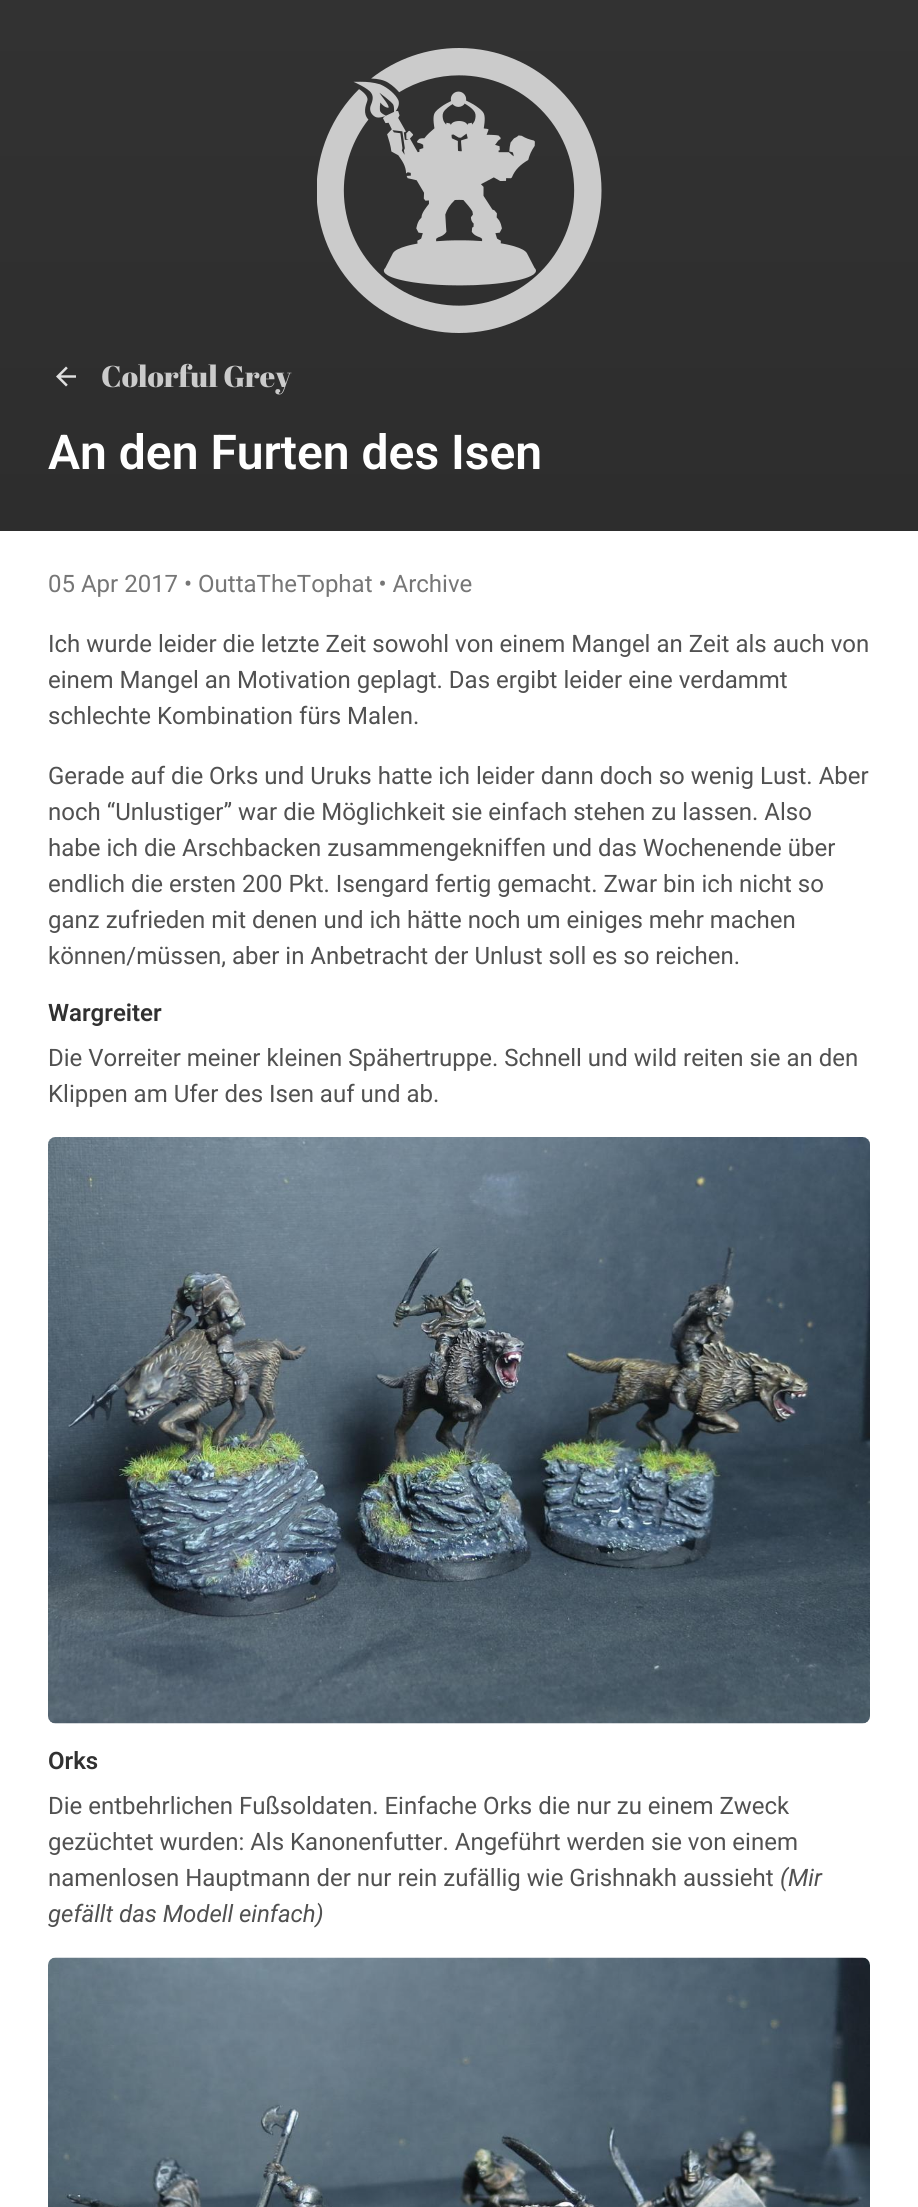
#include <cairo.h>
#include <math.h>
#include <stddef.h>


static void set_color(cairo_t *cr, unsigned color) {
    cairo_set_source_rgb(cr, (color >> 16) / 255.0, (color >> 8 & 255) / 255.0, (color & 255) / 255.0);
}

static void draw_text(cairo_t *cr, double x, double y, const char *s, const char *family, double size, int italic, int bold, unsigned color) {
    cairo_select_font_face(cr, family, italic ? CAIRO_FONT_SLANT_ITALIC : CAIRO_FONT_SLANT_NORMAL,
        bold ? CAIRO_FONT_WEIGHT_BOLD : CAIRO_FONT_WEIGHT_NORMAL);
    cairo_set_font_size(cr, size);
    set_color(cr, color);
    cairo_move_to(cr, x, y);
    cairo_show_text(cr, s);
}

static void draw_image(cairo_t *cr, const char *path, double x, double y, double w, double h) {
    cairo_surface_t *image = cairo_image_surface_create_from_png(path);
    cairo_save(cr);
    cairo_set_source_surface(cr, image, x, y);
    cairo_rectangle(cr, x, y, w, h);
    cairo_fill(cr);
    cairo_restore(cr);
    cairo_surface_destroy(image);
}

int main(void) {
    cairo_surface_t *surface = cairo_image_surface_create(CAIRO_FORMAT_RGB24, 918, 2207);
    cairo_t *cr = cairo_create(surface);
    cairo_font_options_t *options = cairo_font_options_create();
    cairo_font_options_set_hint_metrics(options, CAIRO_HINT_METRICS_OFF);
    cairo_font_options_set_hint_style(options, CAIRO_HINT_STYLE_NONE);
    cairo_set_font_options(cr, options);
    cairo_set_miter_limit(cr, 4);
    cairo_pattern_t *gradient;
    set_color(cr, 0xFFFFFF);
    cairo_paint(cr);
    gradient = cairo_pattern_create_linear(459, 0, 459, 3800);
    cairo_pattern_add_color_stop_rgba(gradient, 0, 0.196, 0.196, 0.196, 1);
    cairo_pattern_add_color_stop_rgba(gradient, 1, 0.055, 0.055, 0.055, 1);
    cairo_set_source(cr, gradient);
    cairo_pattern_destroy(gradient);
    cairo_rectangle(cr, 0, 0, 918, 531);
    cairo_fill(cr);
    draw_image(cr, "assets/img1.png", 317, 48, 285, 285);
    draw_image(cr, "assets/img2.png", 56, 366, 20, 21);
    draw_text(cr, 101, 387, "Colorful Grey", "Abril Fatface", 30, 0, 0, 0xCBCBCB);
    draw_text(cr, 48, 469, "An den Furten des Isen", "Roboto SemiBold", 48, 0, 0, 0xFFFFFF);
    draw_text(cr, 48, 592, "05 Apr 2017 • OuttaTheTophat • Archive", "Roboto", 24, 0, 0, 0x767676);
    draw_text(cr, 48, 652, "Ich wurde leider die letzte Zeit sowohl von einem Mangel an Zeit als auch von", "Roboto", 24, 0, 0, 0x515151);
    draw_text(cr, 48, 688, "einem Mangel an Motivation geplagt. Das ergibt leider eine verdammt", "Roboto", 24, 0, 0, 0x515151);
    draw_text(cr, 48, 724, "schlechte Kombination fürs Malen.", "Roboto", 24, 0, 0, 0x515151);
    draw_text(cr, 48, 784, "Gerade auf die Orks und Uruks hatte ich leider dann doch so wenig Lust. Aber", "Roboto", 24, 0, 0, 0x515151);
    draw_text(cr, 48, 820, "noch “Unlustiger” war die Möglichkeit sie einfach stehen zu lassen. Also", "Roboto", 24, 0, 0, 0x515151);
    draw_text(cr, 48, 856, "habe ich die Arschbacken zusammengekniffen und das Wochenende über", "Roboto", 24, 0, 0, 0x515151);
    draw_text(cr, 48, 892, "endlich die ersten 200 Pkt. Isengard fertig gemacht. Zwar bin ich nicht so", "Roboto", 24, 0, 0, 0x515151);
    draw_text(cr, 48, 928, "ganz zufrieden mit denen und ich hätte noch um einiges mehr machen", "Roboto", 24, 0, 0, 0x515151);
    draw_text(cr, 48, 964, "können/müssen, aber in Anbetracht der Unlust soll es so reichen.", "Roboto", 24, 0, 0, 0x515151);
    draw_text(cr, 48, 1021, "Wargreiter", "Roboto SemiBold", 24, 0, 0, 0x313131);
    draw_text(cr, 48, 1066, "Die Vorreiter meiner kleinen Spähertruppe. Schnell und wild reiten sie an den", "Roboto", 24, 0, 0, 0x515151);
    draw_text(cr, 48, 1102, "Klippen am Ufer des Isen auf und ab.", "Roboto", 24, 0, 0, 0x515151);
    draw_image(cr, "assets/img3.png", 48, 1137, 822, 587);
    draw_text(cr, 48, 1769, "Orks", "Roboto SemiBold", 24, 0, 0, 0x313131);
    draw_text(cr, 48, 1814, "Die entbehrlichen Fußsoldaten. Einfache Orks die nur zu einem Zweck", "Roboto", 24, 0, 0, 0x515151);
    draw_text(cr, 48, 1850, "gezüchtet wurden: Als Kanonenfutter. Angeführt werden sie von einem", "Roboto", 24, 0, 0, 0x515151);
    draw_text(cr, 48, 1886, "namenlosen Hauptmann der nur rein zufällig wie Grishnakh aussieht", "Roboto", 24, 0, 0, 0x515151);
    draw_text(cr, 780, 1886, "(Mir", "Roboto", 24, 1, 0, 0x515151);
    draw_text(cr, 48, 1922, "gefällt das Modell einfach)", "Roboto", 24, 1, 0, 0x515151);
    draw_image(cr, "assets/img4.png", 48, 1957, 822, 250);
    cairo_surface_write_to_png(surface, "output.png");
    cairo_font_options_destroy(options);
    cairo_destroy(cr);
    cairo_surface_destroy(surface);
    return 0;
}
